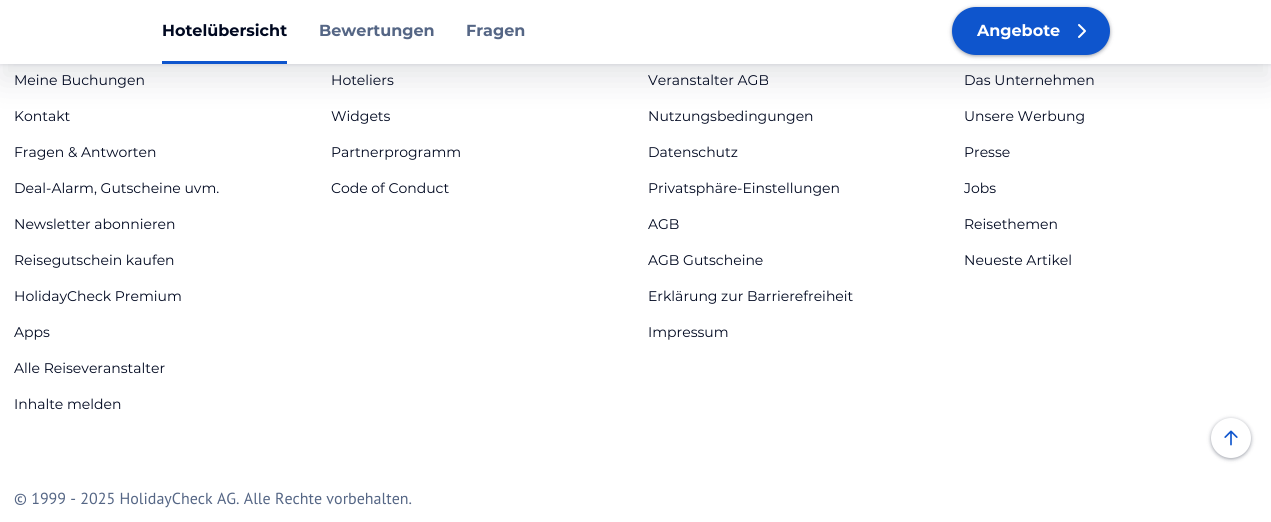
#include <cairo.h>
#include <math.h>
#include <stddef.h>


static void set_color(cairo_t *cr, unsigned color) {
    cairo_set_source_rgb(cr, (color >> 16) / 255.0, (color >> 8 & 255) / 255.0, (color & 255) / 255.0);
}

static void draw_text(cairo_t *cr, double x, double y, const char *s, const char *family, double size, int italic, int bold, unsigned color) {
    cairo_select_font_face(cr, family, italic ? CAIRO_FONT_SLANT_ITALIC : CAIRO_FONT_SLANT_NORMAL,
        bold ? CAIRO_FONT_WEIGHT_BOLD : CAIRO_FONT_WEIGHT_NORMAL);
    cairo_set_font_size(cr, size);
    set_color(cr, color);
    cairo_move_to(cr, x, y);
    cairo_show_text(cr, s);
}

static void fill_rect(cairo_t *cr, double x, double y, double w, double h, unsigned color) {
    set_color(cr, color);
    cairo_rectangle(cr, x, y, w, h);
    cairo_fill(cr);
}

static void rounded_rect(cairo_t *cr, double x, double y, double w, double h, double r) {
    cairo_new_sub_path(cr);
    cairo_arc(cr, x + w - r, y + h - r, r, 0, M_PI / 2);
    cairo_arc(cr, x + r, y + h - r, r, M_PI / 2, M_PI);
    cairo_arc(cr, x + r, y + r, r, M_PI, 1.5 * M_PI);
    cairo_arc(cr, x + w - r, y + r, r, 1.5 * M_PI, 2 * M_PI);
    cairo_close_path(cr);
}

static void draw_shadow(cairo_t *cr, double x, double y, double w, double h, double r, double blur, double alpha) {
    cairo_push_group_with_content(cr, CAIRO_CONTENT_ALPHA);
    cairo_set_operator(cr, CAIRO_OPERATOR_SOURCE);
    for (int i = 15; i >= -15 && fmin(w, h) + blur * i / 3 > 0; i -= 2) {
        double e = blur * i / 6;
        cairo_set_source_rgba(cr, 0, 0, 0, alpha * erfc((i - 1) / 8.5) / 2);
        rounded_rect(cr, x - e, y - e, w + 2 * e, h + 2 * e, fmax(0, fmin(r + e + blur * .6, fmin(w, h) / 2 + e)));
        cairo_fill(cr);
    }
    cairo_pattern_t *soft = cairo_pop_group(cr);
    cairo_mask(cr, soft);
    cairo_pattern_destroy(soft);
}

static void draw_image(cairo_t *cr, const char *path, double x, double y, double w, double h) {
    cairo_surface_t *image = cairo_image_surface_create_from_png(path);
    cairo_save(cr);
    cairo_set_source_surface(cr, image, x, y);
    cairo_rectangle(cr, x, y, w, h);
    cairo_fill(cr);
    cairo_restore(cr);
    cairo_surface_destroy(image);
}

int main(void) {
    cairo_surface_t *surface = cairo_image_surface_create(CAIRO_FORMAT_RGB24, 1271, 522);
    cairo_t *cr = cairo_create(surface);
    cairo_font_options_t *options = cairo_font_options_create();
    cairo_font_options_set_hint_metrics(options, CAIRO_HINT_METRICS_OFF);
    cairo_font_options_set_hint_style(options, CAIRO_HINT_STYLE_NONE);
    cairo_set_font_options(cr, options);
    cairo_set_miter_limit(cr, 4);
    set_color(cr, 0xFFFFFF);
    cairo_paint(cr);
    set_color(cr, 0x000820);
    draw_shadow(cr, 0, 1, 1271, 64, 0, 2, 0.1);
    draw_shadow(cr, 0, 16, 1271, 64, 0, 16, 0.1);
    fill_rect(cr, 0, 0, 1271, 64, 0xFFFFFF);
    fill_rect(cr, 162, 61, 125, 3, 0x0E55CD);
    draw_text(cr, 162, 36, "Hotelübersicht", "Montserrat", 16, 0, 1, 0x000820);
    draw_text(cr, 319, 36, "Bewertungen", "Montserrat", 16, 0, 1, 0x556685);
    draw_text(cr, 466, 36, "Fragen", "Montserrat", 16, 0, 1, 0x556685);
    set_color(cr, 0x000820);
    draw_shadow(cr, 952, 8, 158, 48, 24, 2, 0.4);
    set_color(cr, 0x0E55CD);
    rounded_rect(cr, 952, 7, 158, 48, 24);
    cairo_fill(cr);
    draw_text(cr, 977, 36, "Angebote", "Montserrat", 16, 0, 1, 0xFFFFFF);
    draw_image(cr, "assets/img1.png", 1078, 24, 8, 14);
    set_color(cr, 0x000820);
    draw_shadow(cr, 1211, 419, 40, 40, 20, 2, 0.4);
    set_color(cr, 0xFFFFFF);
    cairo_arc(cr, 1231, 438, 20, 0, 2 * M_PI);
    cairo_fill(cr);
    draw_image(cr, "assets/img2.png", 1224, 430, 14, 16);
    draw_text(cr, 14, 85, "Meine Buchungen", "Montserrat", 14, 0, 0, 0x000820);
    draw_text(cr, 14, 121, "Kontakt", "Montserrat", 14, 0, 0, 0x000820);
    draw_text(cr, 14, 157, "Fragen & Antworten", "Montserrat", 14, 0, 0, 0x000820);
    draw_text(cr, 14, 193, "Deal-Alarm, Gutscheine uvm.", "Montserrat", 14, 0, 0, 0x000820);
    draw_text(cr, 14, 229, "Newsletter abonnieren", "Montserrat", 14, 0, 0, 0x000820);
    draw_text(cr, 14, 265, "Reisegutschein kaufen", "Montserrat", 14, 0, 0, 0x000820);
    draw_text(cr, 14, 301, "HolidayCheck Premium", "Montserrat", 14, 0, 0, 0x000820);
    draw_text(cr, 14, 337, "Apps", "Montserrat", 14, 0, 0, 0x000820);
    draw_text(cr, 14, 373, "Alle Reiseveranstalter", "Montserrat", 14, 0, 0, 0x000820);
    draw_text(cr, 14, 409, "Inhalte melden", "Montserrat", 14, 0, 0, 0x000820);
    draw_text(cr, 331, 85, "Hoteliers", "Montserrat", 14, 0, 0, 0x000820);
    draw_text(cr, 331, 121, "Widgets", "Montserrat", 14, 0, 0, 0x000820);
    draw_text(cr, 331, 157, "Partnerprogramm", "Montserrat", 14, 0, 0, 0x000820);
    draw_text(cr, 331, 193, "Code of Conduct", "Montserrat", 14, 0, 0, 0x000820);
    draw_text(cr, 648, 85, "Veranstalter AGB", "Montserrat", 14, 0, 0, 0x000820);
    draw_text(cr, 648, 121, "Nutzungsbedingungen", "Montserrat", 14, 0, 0, 0x000820);
    draw_text(cr, 648, 157, "Datenschutz", "Montserrat", 14, 0, 0, 0x000820);
    draw_text(cr, 648, 193, "Privatsphäre-Einstellungen", "Montserrat", 14, 0, 0, 0x000820);
    draw_text(cr, 648, 229, "AGB", "Montserrat", 14, 0, 0, 0x000820);
    draw_text(cr, 648, 265, "AGB Gutscheine", "Montserrat", 14, 0, 0, 0x000820);
    draw_text(cr, 648, 301, "Erklärung zur Barrierefreiheit", "Montserrat", 14, 0, 0, 0x000820);
    draw_text(cr, 648, 337, "Impressum", "Montserrat", 14, 0, 0, 0x000820);
    draw_text(cr, 964, 85, "Das Unternehmen", "Montserrat", 14, 0, 0, 0x000820);
    draw_text(cr, 964, 121, "Unsere Werbung", "Montserrat", 14, 0, 0, 0x000820);
    draw_text(cr, 964, 157, "Presse", "Montserrat", 14, 0, 0, 0x000820);
    draw_text(cr, 964, 193, "Jobs", "Montserrat", 14, 0, 0, 0x000820);
    draw_text(cr, 964, 229, "Reisethemen", "Montserrat", 14, 0, 0, 0x000820);
    draw_text(cr, 964, 265, "Neueste Artikel", "Montserrat", 14, 0, 0, 0x000820);
    draw_text(cr, 14, 504, "© 1999 - 2025 HolidayCheck AG. Alle Rechte vorbehalten.", "PT Sans", 16, 0, 0, 0x556685);
    cairo_surface_write_to_png(surface, "output.png");
    cairo_font_options_destroy(options);
    cairo_destroy(cr);
    cairo_surface_destroy(surface);
    return 0;
}
